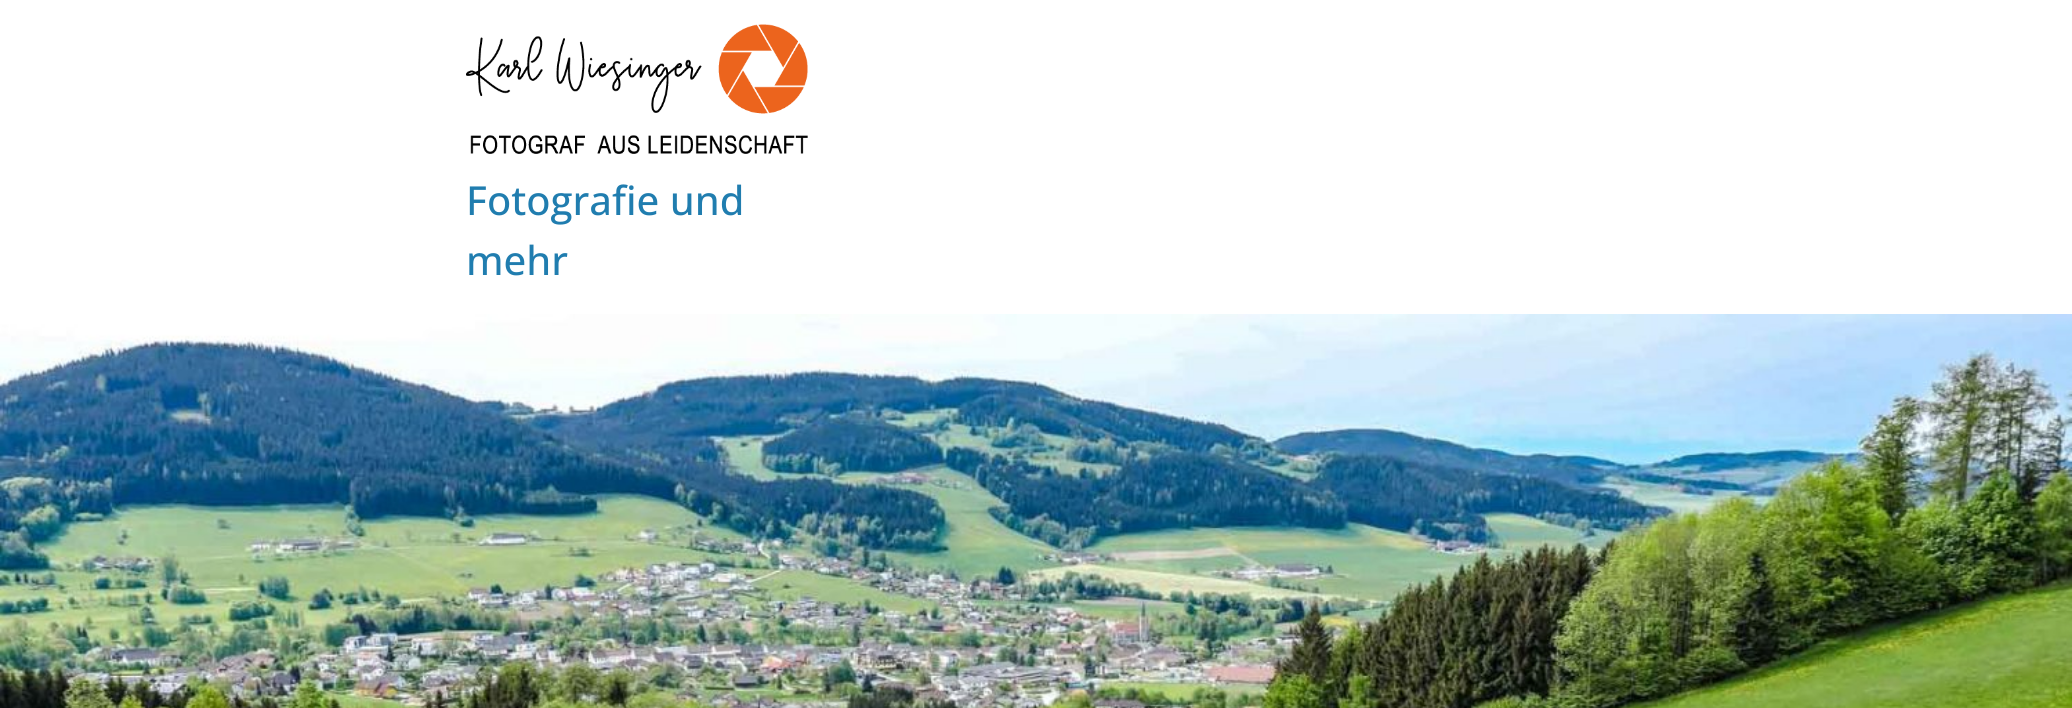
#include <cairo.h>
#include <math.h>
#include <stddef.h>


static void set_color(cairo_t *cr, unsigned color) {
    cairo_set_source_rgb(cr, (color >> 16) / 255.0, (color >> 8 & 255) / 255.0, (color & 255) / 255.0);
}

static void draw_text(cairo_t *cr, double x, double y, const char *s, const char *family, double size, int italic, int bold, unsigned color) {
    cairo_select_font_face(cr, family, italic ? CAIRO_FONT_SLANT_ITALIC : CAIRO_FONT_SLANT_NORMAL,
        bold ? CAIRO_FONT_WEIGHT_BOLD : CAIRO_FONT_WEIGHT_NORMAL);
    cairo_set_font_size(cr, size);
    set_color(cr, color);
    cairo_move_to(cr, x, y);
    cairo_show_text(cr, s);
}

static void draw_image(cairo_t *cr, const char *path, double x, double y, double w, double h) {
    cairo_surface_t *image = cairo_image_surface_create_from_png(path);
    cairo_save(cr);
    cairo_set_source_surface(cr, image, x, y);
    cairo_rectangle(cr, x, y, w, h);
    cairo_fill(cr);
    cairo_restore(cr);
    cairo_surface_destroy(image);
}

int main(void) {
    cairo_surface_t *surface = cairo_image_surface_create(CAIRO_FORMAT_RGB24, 2072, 708);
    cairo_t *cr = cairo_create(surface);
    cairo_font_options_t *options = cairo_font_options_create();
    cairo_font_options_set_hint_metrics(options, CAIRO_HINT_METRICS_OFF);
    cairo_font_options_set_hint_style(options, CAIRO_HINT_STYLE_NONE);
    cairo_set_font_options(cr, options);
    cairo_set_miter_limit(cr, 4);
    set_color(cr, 0xFFFFFF);
    cairo_paint(cr);
    draw_image(cr, "assets/img1.png", 466, 24, 342, 130);
    draw_text(cr, 466, 215, "Fotografie und", "Open Sans Medium", 40, 0, 0, 0x207DAF);
    draw_text(cr, 466, 275, "mehr", "Open Sans Medium", 40, 0, 0, 0x207DAF);
    draw_image(cr, "assets/img2.png", 0, 314, 2072, 394);
    cairo_surface_write_to_png(surface, "output.png");
    cairo_font_options_destroy(options);
    cairo_destroy(cr);
    cairo_surface_destroy(surface);
    return 0;
}
